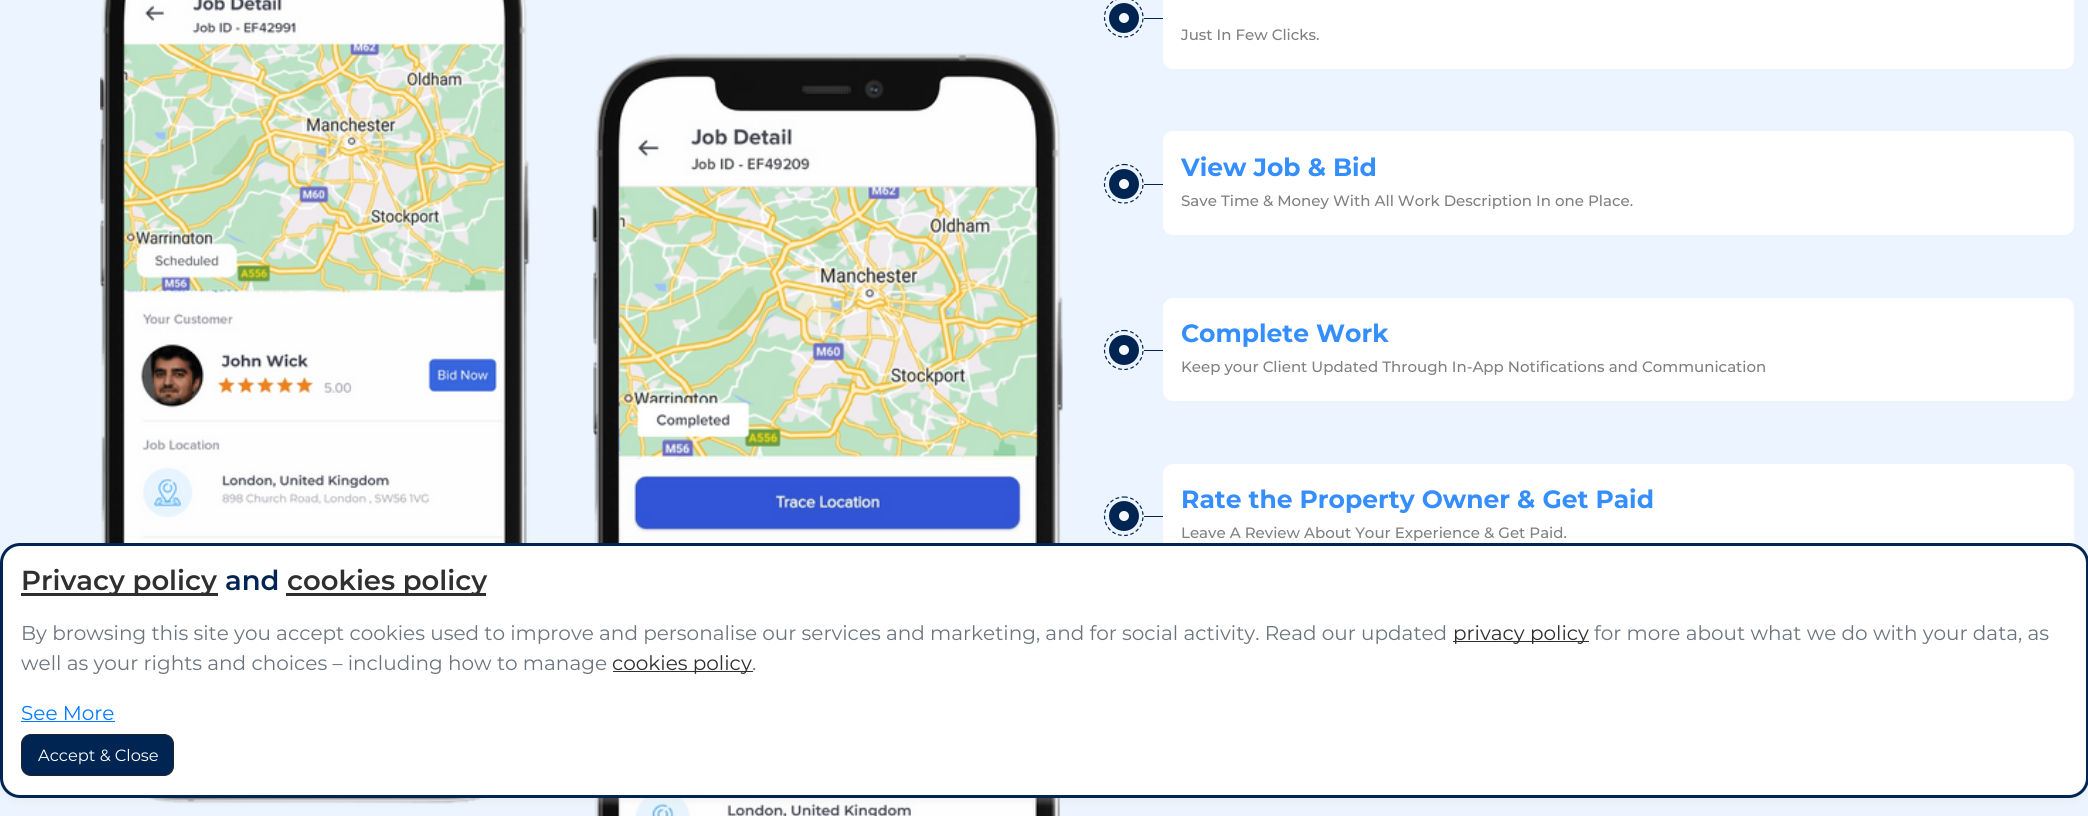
#include <cairo.h>
#include <math.h>
#include <stddef.h>


static void set_color(cairo_t *cr, unsigned color) {
    cairo_set_source_rgb(cr, (color >> 16) / 255.0, (color >> 8 & 255) / 255.0, (color & 255) / 255.0);
}

static void draw_text(cairo_t *cr, double x, double y, const char *s, const char *family, double size, int italic, int bold, unsigned color) {
    cairo_select_font_face(cr, family, italic ? CAIRO_FONT_SLANT_ITALIC : CAIRO_FONT_SLANT_NORMAL,
        bold ? CAIRO_FONT_WEIGHT_BOLD : CAIRO_FONT_WEIGHT_NORMAL);
    cairo_set_font_size(cr, size);
    set_color(cr, color);
    cairo_move_to(cr, x, y);
    cairo_show_text(cr, s);
}

static void fill_rect(cairo_t *cr, double x, double y, double w, double h, unsigned color) {
    set_color(cr, color);
    cairo_rectangle(cr, x, y, w, h);
    cairo_fill(cr);
}

static void rounded_rect(cairo_t *cr, double x, double y, double w, double h, double r) {
    cairo_new_sub_path(cr);
    cairo_arc(cr, x + w - r, y + h - r, r, 0, M_PI / 2);
    cairo_arc(cr, x + r, y + h - r, r, M_PI / 2, M_PI);
    cairo_arc(cr, x + r, y + r, r, M_PI, 1.5 * M_PI);
    cairo_arc(cr, x + w - r, y + r, r, 1.5 * M_PI, 2 * M_PI);
    cairo_close_path(cr);
}

static void draw_shadow(cairo_t *cr, double x, double y, double w, double h, double r, double blur, double alpha) {
    cairo_push_group_with_content(cr, CAIRO_CONTENT_ALPHA);
    cairo_set_operator(cr, CAIRO_OPERATOR_SOURCE);
    for (int i = 15; i >= -15 && fmin(w, h) + blur * i / 3 > 0; i -= 2) {
        double e = blur * i / 6;
        cairo_set_source_rgba(cr, 0, 0, 0, alpha * erfc((i - 1) / 8.5) / 2);
        rounded_rect(cr, x - e, y - e, w + 2 * e, h + 2 * e, fmax(0, fmin(r + e + blur * .6, fmin(w, h) / 2 + e)));
        cairo_fill(cr);
    }
    cairo_pattern_t *soft = cairo_pop_group(cr);
    cairo_mask(cr, soft);
    cairo_pattern_destroy(soft);
}

static void draw_image(cairo_t *cr, const char *path, double x, double y, double w, double h) {
    cairo_surface_t *image = cairo_image_surface_create_from_png(path);
    cairo_save(cr);
    cairo_set_source_surface(cr, image, x, y);
    cairo_rectangle(cr, x, y, w, h);
    cairo_fill(cr);
    cairo_restore(cr);
    cairo_surface_destroy(image);
}

int main(void) {
    cairo_surface_t *surface = cairo_image_surface_create(CAIRO_FORMAT_RGB24, 2088, 816);
    cairo_t *cr = cairo_create(surface);
    cairo_font_options_t *options = cairo_font_options_create();
    cairo_font_options_set_hint_metrics(options, CAIRO_HINT_METRICS_OFF);
    cairo_font_options_set_hint_style(options, CAIRO_HINT_STYLE_NONE);
    cairo_set_font_options(cr, options);
    cairo_set_miter_limit(cr, 4);
    set_color(cr, 0xEBF4FF);
    cairo_paint(cr);
    draw_image(cr, "assets/img1.png", 100, 0, 963, 816);
    set_color(cr, 0xF5F9FF);
    cairo_arc(cr, 1124, 18, 10, 0, 2 * M_PI);
    cairo_fill_preserve(cr);
    set_color(cr, 0x012552);
    cairo_set_line_width(cr, 10);
    cairo_stroke(cr);
    cairo_new_path(cr);
    cairo_move_to(cr, 1124, -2);
    cairo_curve_to(cr, 1134.5, -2, 1143, 7, 1143, 17.5);
    cairo_curve_to(cr, 1143, 28, 1134.5, 37, 1124, 37);
    cairo_curve_to(cr, 1113, 37, 1104.5, 28, 1104.5, 17.5);
    cairo_curve_to(cr, 1104.5, 7, 1113, -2, 1124, -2);
    cairo_close_path(cr);
    cairo_set_line_width(cr, 1.2);
    cairo_set_dash(cr, (double[]){3.75, 2.5}, 2, 0);
    cairo_stroke(cr);
    fill_rect(cr, 1144, 18, 19, 1, 0x012552);
    set_color(cr, 0xFFFFFF);
    rounded_rect(cr, 1163, -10, 911, 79, 10);
    cairo_fill(cr);
    draw_text(cr, 1181, 40, "Just In Few Clicks.", "Montserrat Medium", 15, 0, 0, 0x808080);
    set_color(cr, 0xF5F9FF);
    cairo_new_path(cr);
    cairo_arc(cr, 1124, 184, 10, 0, 2 * M_PI);
    cairo_fill_preserve(cr);
    set_color(cr, 0x012552);
    cairo_set_line_width(cr, 10);
    cairo_set_dash(cr, NULL, 0, 0);
    cairo_stroke(cr);
    cairo_new_path(cr);
    cairo_move_to(cr, 1124, 164.5);
    cairo_curve_to(cr, 1134.5, 164.5, 1143, 173, 1143, 184);
    cairo_curve_to(cr, 1143, 194.5, 1134.5, 203, 1124, 203);
    cairo_curve_to(cr, 1113, 203, 1104.5, 194.5, 1104.5, 184);
    cairo_curve_to(cr, 1104.5, 173, 1113, 164.5, 1124, 164.5);
    cairo_close_path(cr);
    cairo_set_line_width(cr, 1.2);
    cairo_set_dash(cr, (double[]){3.75, 2.5}, 2, 0);
    cairo_stroke(cr);
    fill_rect(cr, 1144, 184, 19, 1, 0x012552);
    set_color(cr, 0xFFFFFF);
    rounded_rect(cr, 1163, 131, 911, 104, 10);
    cairo_fill(cr);
    draw_text(cr, 1181, 176, "View Job & Bid", "Montserrat", 25, 0, 1, 0x358EFD);
    draw_text(cr, 1181, 206, "Save Time & Money With All Work Description In one Place.", "Montserrat Medium", 15, 0, 0, 0x808080);
    set_color(cr, 0xF5F9FF);
    cairo_new_path(cr);
    cairo_arc(cr, 1124, 350, 10, 0, 2 * M_PI);
    cairo_fill_preserve(cr);
    set_color(cr, 0x012552);
    cairo_set_line_width(cr, 10);
    cairo_set_dash(cr, NULL, 0, 0);
    cairo_stroke(cr);
    cairo_new_path(cr);
    cairo_move_to(cr, 1124, 330.5);
    cairo_curve_to(cr, 1134.5, 330.5, 1143, 339.5, 1143, 350);
    cairo_curve_to(cr, 1143, 360.5, 1134.5, 369.5, 1124, 369.5);
    cairo_curve_to(cr, 1113, 369.5, 1104.5, 360.5, 1104.5, 350);
    cairo_curve_to(cr, 1104.5, 339.5, 1113, 330.5, 1124, 330.5);
    cairo_close_path(cr);
    cairo_set_line_width(cr, 1.2);
    cairo_set_dash(cr, (double[]){3.75, 2.5}, 2, 0);
    cairo_stroke(cr);
    fill_rect(cr, 1144, 350, 19, 1, 0x012552);
    set_color(cr, 0xFFFFFF);
    rounded_rect(cr, 1163, 298, 911, 103, 10);
    cairo_fill(cr);
    draw_text(cr, 1181, 342, "Complete Work", "Montserrat", 25, 0, 1, 0x358EFD);
    draw_text(cr, 1181, 372, "Keep your Client Updated Through In-App Notifications and Communication", "Montserrat Medium", 15, 0, 0, 0x808080);
    set_color(cr, 0xF5F9FF);
    cairo_new_path(cr);
    cairo_arc(cr, 1124, 516, 10, 0, 2 * M_PI);
    cairo_fill_preserve(cr);
    set_color(cr, 0x012552);
    cairo_set_line_width(cr, 10);
    cairo_set_dash(cr, NULL, 0, 0);
    cairo_stroke(cr);
    cairo_new_path(cr);
    cairo_move_to(cr, 1124, 497);
    cairo_curve_to(cr, 1134.5, 497, 1143, 505.5, 1143, 516);
    cairo_curve_to(cr, 1143, 527, 1134.5, 535.5, 1124, 535.5);
    cairo_curve_to(cr, 1113, 535.5, 1104.5, 527, 1104.5, 516);
    cairo_curve_to(cr, 1104.5, 505.5, 1113, 497, 1124, 497);
    cairo_close_path(cr);
    cairo_set_line_width(cr, 1.2);
    cairo_set_dash(cr, (double[]){3.75, 2.5}, 2, 0);
    cairo_stroke(cr);
    fill_rect(cr, 1144, 516, 19, 1, 0x012552);
    set_color(cr, 0xFFFFFF);
    rounded_rect(cr, 1163, 464, 911, 104, 10);
    cairo_fill(cr);
    draw_text(cr, 1181, 508, "Rate the Property Owner & Get Paid", "Montserrat", 25, 0, 1, 0x358EFD);
    draw_text(cr, 1181, 538, "Leave A Review About Your Experience & Get Paid.", "Montserrat Medium", 15, 0, 0, 0x808080);
    set_color(cr, 0xDFDFDF);
    draw_shadow(cr, 0, 548, 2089, 255, 20, 2.5, 0.25);
    set_color(cr, 0xFFFFFF);
    rounded_rect(cr, 1.5, 544.5, 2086, 252, 18.5);
    cairo_fill_preserve(cr);
    set_color(cr, 0x012552);
    cairo_set_line_width(cr, 3);
    cairo_set_dash(cr, NULL, 0, 0);
    cairo_stroke(cr);
    fill_rect(cr, 21, 593, 197, 3, 0x2F2F2F);
    draw_text(cr, 21, 590, "Privacy policy", "Montserrat SemiBold", 27.5, 0, 0, 0x2F2F2F);
    draw_text(cr, 225, 590, "and", "Montserrat SemiBold", 27.5, 0, 0, 0x012552);
    fill_rect(cr, 286, 593, 200, 3, 0x2F2F2F);
    draw_text(cr, 287, 590, "cookies policy", "Montserrat SemiBold", 27.5, 0, 0, 0x2F2F2F);
    draw_text(cr, 21, 640, "By browsing this site you accept cookies used to improve and personalise our services and marketing, and for social activity. Read our updated", "Montserrat", 20, 0, 0, 0x6C757D);
    fill_rect(cr, 1453, 641, 136, 1, 0x2F2F2F);
    draw_text(cr, 1453, 640, "privacy policy", "Montserrat", 20, 0, 0, 0x2F2F2F);
    draw_text(cr, 1594, 640, "for more about what we do with your data, as", "Montserrat", 20, 0, 0, 0x6C757D);
    draw_text(cr, 21, 670, "well as your rights and choices – including how to manage", "Montserrat", 20, 0, 0, 0x6C757D);
    fill_rect(cr, 613, 671, 140, 1, 0x2F2F2F);
    draw_text(cr, 612, 670, "cookies policy", "Montserrat", 20, 0, 0, 0x2F2F2F);
    draw_text(cr, 752, 670, ".", "Montserrat", 20, 0, 0, 0x6C757D);
    draw_text(cr, 21, 720, "See More", "Montserrat", 20, 0, 0, 0x007BFF);
    fill_rect(cr, 21, 721, 94, 1, 0x007BFF);
    set_color(cr, 0x012552);
    rounded_rect(cr, 21.5, 734.5, 152, 41, 9.5);
    cairo_fill_preserve(cr);
    set_color(cr, 0x212529);
    cairo_set_line_width(cr, 1);
    cairo_stroke(cr);
    draw_text(cr, 38, 761, "Accept & Close", "Montserrat", 16.25, 0, 0, 0xFFFFFF);
    cairo_surface_write_to_png(surface, "output.png");
    cairo_font_options_destroy(options);
    cairo_destroy(cr);
    cairo_surface_destroy(surface);
    return 0;
}
